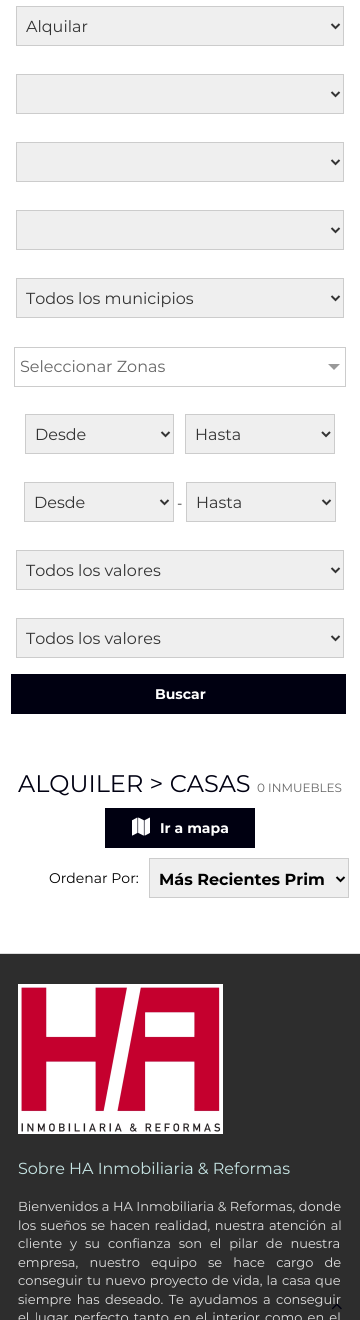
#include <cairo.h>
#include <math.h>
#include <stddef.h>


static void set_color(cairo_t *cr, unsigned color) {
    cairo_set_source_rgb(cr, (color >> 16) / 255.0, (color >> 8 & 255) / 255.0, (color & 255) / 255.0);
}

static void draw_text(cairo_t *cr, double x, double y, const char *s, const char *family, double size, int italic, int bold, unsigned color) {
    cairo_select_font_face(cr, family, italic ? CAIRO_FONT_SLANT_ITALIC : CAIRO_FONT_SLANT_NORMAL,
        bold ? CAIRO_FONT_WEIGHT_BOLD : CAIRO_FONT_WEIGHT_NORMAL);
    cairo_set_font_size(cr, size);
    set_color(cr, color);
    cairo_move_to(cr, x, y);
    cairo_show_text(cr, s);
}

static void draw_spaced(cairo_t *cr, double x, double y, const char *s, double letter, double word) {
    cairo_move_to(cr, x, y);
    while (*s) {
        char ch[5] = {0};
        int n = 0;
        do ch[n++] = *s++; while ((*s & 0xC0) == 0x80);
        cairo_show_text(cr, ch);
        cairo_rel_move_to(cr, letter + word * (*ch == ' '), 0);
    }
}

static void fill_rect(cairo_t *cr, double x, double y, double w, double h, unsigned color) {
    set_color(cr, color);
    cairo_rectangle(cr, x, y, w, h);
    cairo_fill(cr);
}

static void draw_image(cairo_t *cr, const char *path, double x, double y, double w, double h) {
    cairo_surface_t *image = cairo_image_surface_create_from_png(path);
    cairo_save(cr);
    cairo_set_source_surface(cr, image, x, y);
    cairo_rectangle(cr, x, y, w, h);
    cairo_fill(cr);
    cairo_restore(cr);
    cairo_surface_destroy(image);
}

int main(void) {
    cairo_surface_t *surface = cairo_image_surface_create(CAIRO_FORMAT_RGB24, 360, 1320);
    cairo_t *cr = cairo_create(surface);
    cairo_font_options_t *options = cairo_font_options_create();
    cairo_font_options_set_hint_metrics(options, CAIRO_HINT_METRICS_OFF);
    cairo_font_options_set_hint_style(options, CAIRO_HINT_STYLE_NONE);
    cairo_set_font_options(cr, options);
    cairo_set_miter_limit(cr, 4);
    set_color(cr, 0xFFFFFF);
    cairo_paint(cr);
    set_color(cr, 0xEFEFEF);
    cairo_rectangle(cr, 16.5, 6.5, 327, 39);
    cairo_fill_preserve(cr);
    set_color(cr, 0xCCCCCC);
    cairo_set_line_width(cr, 1);
    cairo_stroke(cr);
    cairo_new_path(cr);
    cairo_move_to(cr, 331.5, 24);
    cairo_line_to(cr, 335.5, 28);
    cairo_line_to(cr, 339.5, 24);
    set_color(cr, 0x333333);
    cairo_set_line_width(cr, 2);
    cairo_stroke(cr);
    draw_text(cr, 26, 32, "Alquilar", "Montserrat", 16, 0, 0, 0x333333);
    set_color(cr, 0xEFEFEF);
    cairo_rectangle(cr, 16.5, 74.5, 327, 39);
    cairo_fill_preserve(cr);
    set_color(cr, 0xCCCCCC);
    cairo_set_line_width(cr, 1);
    cairo_stroke(cr);
    cairo_new_path(cr);
    cairo_move_to(cr, 331.5, 92);
    cairo_line_to(cr, 335.5, 96);
    cairo_line_to(cr, 339.5, 92);
    set_color(cr, 0x333333);
    cairo_set_line_width(cr, 2);
    cairo_stroke(cr);
    set_color(cr, 0xEFEFEF);
    cairo_rectangle(cr, 16.5, 142.5, 327, 39);
    cairo_fill_preserve(cr);
    set_color(cr, 0xCCCCCC);
    cairo_set_line_width(cr, 1);
    cairo_stroke(cr);
    cairo_new_path(cr);
    cairo_move_to(cr, 331.5, 160);
    cairo_line_to(cr, 335.5, 164);
    cairo_line_to(cr, 339.5, 160);
    set_color(cr, 0x333333);
    cairo_set_line_width(cr, 2);
    cairo_stroke(cr);
    set_color(cr, 0xEFEFEF);
    cairo_rectangle(cr, 16.5, 210.5, 327, 39);
    cairo_fill_preserve(cr);
    set_color(cr, 0xCCCCCC);
    cairo_set_line_width(cr, 1);
    cairo_stroke(cr);
    cairo_new_path(cr);
    cairo_move_to(cr, 331.5, 228);
    cairo_line_to(cr, 335.5, 232);
    cairo_line_to(cr, 339.5, 228);
    set_color(cr, 0x333333);
    cairo_set_line_width(cr, 2);
    cairo_stroke(cr);
    set_color(cr, 0xEFEFEF);
    cairo_rectangle(cr, 16.5, 278.5, 327, 39);
    cairo_fill_preserve(cr);
    set_color(cr, 0xCCCCCC);
    cairo_set_line_width(cr, 1);
    cairo_stroke(cr);
    cairo_new_path(cr);
    cairo_move_to(cr, 331.5, 296);
    cairo_line_to(cr, 335.5, 300);
    cairo_line_to(cr, 339.5, 296);
    set_color(cr, 0x333333);
    cairo_set_line_width(cr, 2);
    cairo_stroke(cr);
    draw_text(cr, 26, 304, "Todos los municipios", "Montserrat", 16, 0, 0, 0x333333);
    cairo_rectangle(cr, 14.5, 347.5, 331, 39);
    set_color(cr, 0xCCCCCC);
    cairo_set_line_width(cr, 1);
    cairo_stroke(cr);
    draw_text(cr, 20, 372, "Seleccionar Zonas", "Montserrat", 16, 0, 0, 0x666666);
    set_color(cr, 0x999999);
    cairo_new_path(cr);
    cairo_move_to(cr, 328, 364);
    cairo_line_to(cr, 340, 364);
    cairo_line_to(cr, 334, 370);
    cairo_close_path(cr);
    cairo_fill(cr);
    set_color(cr, 0xEFEFEF);
    cairo_rectangle(cr, 25.5, 414.5, 148, 39);
    cairo_fill_preserve(cr);
    set_color(cr, 0xCCCCCC);
    cairo_stroke(cr);
    cairo_new_path(cr);
    cairo_move_to(cr, 161.5, 432);
    cairo_line_to(cr, 165.5, 436);
    cairo_line_to(cr, 169.5, 432);
    set_color(cr, 0x333333);
    cairo_set_line_width(cr, 2);
    cairo_stroke(cr);
    draw_text(cr, 35, 440, "Desde", "Montserrat", 16, 0, 0, 0x333333);
    set_color(cr, 0xEFEFEF);
    cairo_rectangle(cr, 185.5, 414.5, 149, 39);
    cairo_fill_preserve(cr);
    set_color(cr, 0xCCCCCC);
    cairo_set_line_width(cr, 1);
    cairo_stroke(cr);
    cairo_new_path(cr);
    cairo_move_to(cr, 322, 432);
    cairo_line_to(cr, 326, 436);
    cairo_line_to(cr, 330, 432);
    set_color(cr, 0x333333);
    cairo_set_line_width(cr, 2);
    cairo_stroke(cr);
    draw_text(cr, 195, 440, "Hasta", "Montserrat", 16, 0, 0, 0x333333);
    set_color(cr, 0xEFEFEF);
    cairo_rectangle(cr, 24.5, 482.5, 149, 39);
    cairo_fill_preserve(cr);
    set_color(cr, 0xCCCCCC);
    cairo_set_line_width(cr, 1);
    cairo_stroke(cr);
    cairo_new_path(cr);
    cairo_move_to(cr, 160.5, 500);
    cairo_line_to(cr, 164.5, 504);
    cairo_line_to(cr, 168.5, 500);
    set_color(cr, 0x333333);
    cairo_set_line_width(cr, 2);
    cairo_stroke(cr);
    draw_text(cr, 34, 508, "Desde", "Montserrat", 16, 0, 0, 0x333333);
    draw_text(cr, 177, 508, "-", "Montserrat", 14, 0, 0, 0x333333);
    set_color(cr, 0xEFEFEF);
    cairo_rectangle(cr, 186.5, 482.5, 149, 39);
    cairo_fill_preserve(cr);
    set_color(cr, 0xCCCCCC);
    cairo_set_line_width(cr, 1);
    cairo_stroke(cr);
    cairo_new_path(cr);
    cairo_move_to(cr, 322.5, 500);
    cairo_line_to(cr, 326.5, 504);
    cairo_line_to(cr, 330.5, 500);
    set_color(cr, 0x333333);
    cairo_set_line_width(cr, 2);
    cairo_stroke(cr);
    draw_text(cr, 196, 508, "Hasta", "Montserrat", 16, 0, 0, 0x333333);
    set_color(cr, 0xEFEFEF);
    cairo_rectangle(cr, 16.5, 550.5, 327, 39);
    cairo_fill_preserve(cr);
    set_color(cr, 0xCCCCCC);
    cairo_set_line_width(cr, 1);
    cairo_stroke(cr);
    cairo_new_path(cr);
    cairo_move_to(cr, 331.5, 568);
    cairo_line_to(cr, 335.5, 572);
    cairo_line_to(cr, 339.5, 568);
    set_color(cr, 0x333333);
    cairo_set_line_width(cr, 2);
    cairo_stroke(cr);
    draw_text(cr, 26, 576, "Todos los valores", "Montserrat", 16, 0, 0, 0x333333);
    set_color(cr, 0xEFEFEF);
    cairo_rectangle(cr, 16.5, 618.5, 327, 39);
    cairo_fill_preserve(cr);
    set_color(cr, 0xCCCCCC);
    cairo_set_line_width(cr, 1);
    cairo_stroke(cr);
    cairo_new_path(cr);
    cairo_move_to(cr, 331.5, 636);
    cairo_line_to(cr, 335.5, 640);
    cairo_line_to(cr, 339.5, 636);
    set_color(cr, 0x333333);
    cairo_set_line_width(cr, 2);
    cairo_stroke(cr);
    draw_text(cr, 26, 644, "Todos los valores", "Montserrat", 16, 0, 0, 0x333333);
    fill_rect(cr, 11, 674, 335, 40, 0x000011);
    draw_text(cr, 155, 699, "Buscar", "Montserrat", 14, 0, 1, 0xFFFFFF);
    draw_text(cr, 18, 792, "ALQUILER > CASAS", "Montserrat", 24, 0, 0, 0x000011);
    draw_text(cr, 257, 792, "0 INMUEBLES", "Montserrat", 12, 0, 0, 0x666666);
    fill_rect(cr, 105, 808, 150, 40, 0x000011);
    draw_image(cr, "assets/img1.png", 132, 817, 18, 19);
    draw_text(cr, 160, 833, "Ir a mapa", "Montserrat", 14, 0, 1, 0xFFFFFF);
    draw_text(cr, 49, 883, "Ordenar Por:", "Montserrat", 14, 0, 0, 0x000000);
    cairo_rectangle(cr, 149.5, 858.5, 199, 39);
    set_color(cr, 0xCCCCCC);
    cairo_set_line_width(cr, 1);
    cairo_stroke(cr);
    fill_rect(cr, 150, 859, 198, 38, 0xEFEFEF);
    cairo_new_path(cr);
    cairo_move_to(cr, 336.5, 877);
    cairo_line_to(cr, 340.5, 881);
    cairo_line_to(cr, 344.5, 877);
    set_color(cr, 0x000000);
    cairo_set_line_width(cr, 2);
    cairo_stroke(cr);
    draw_text(cr, 159, 885, "Más Recientes Prim", "Montserrat", 16, 0, 1, 0x000000);
    fill_rect(cr, 0, 954, 360, 366, 0x2D2D2D);
    fill_rect(cr, 0, 953, 360, 1, 0xDDDDDD);
    fill_rect(cr, 18, 984, 205, 150, 0xFFFFFF);
    draw_image(cr, "assets/img2.png", 21, 987, 200, 145);
    draw_text(cr, 18, 1174, "Sobre HA Inmobiliaria & Reformas", "Montserrat", 16, 0, 0, 0xC6E4E3);
    draw_text(cr, 18, 1211, "Bienvenidos a HA Inmobiliaria & Reformas, donde", "Montserrat", 13, 0, 0, 0xDFDFDF);
    draw_spaced(cr, 18, 1230, "los sueños se hacen realidad, nuestra atención al", 0, 1);
    draw_spaced(cr, 18, 1248, "cliente y su confianza son el pilar de nuestra", 0, 4.5);
    draw_spaced(cr, 18, 1267, "empresa, nuestro equipo se hace cargo de", 0, 7.75);
    draw_spaced(cr, 18, 1285, "conseguir tu nuevo proyecto de vida, la casa que", 0, 0.75);
    draw_spaced(cr, 18, 1304, "siempre has deseado. Te ayudamos a conseguir", 0, 2);
    draw_spaced(cr, 18, 1322, "el lugar perfecto tanto en el interior como en el", 0, 1.75);
    draw_image(cr, "assets/img3.png", 331, 1303, 11, 7);
    cairo_surface_write_to_png(surface, "output.png");
    cairo_font_options_destroy(options);
    cairo_destroy(cr);
    cairo_surface_destroy(surface);
    return 0;
}
